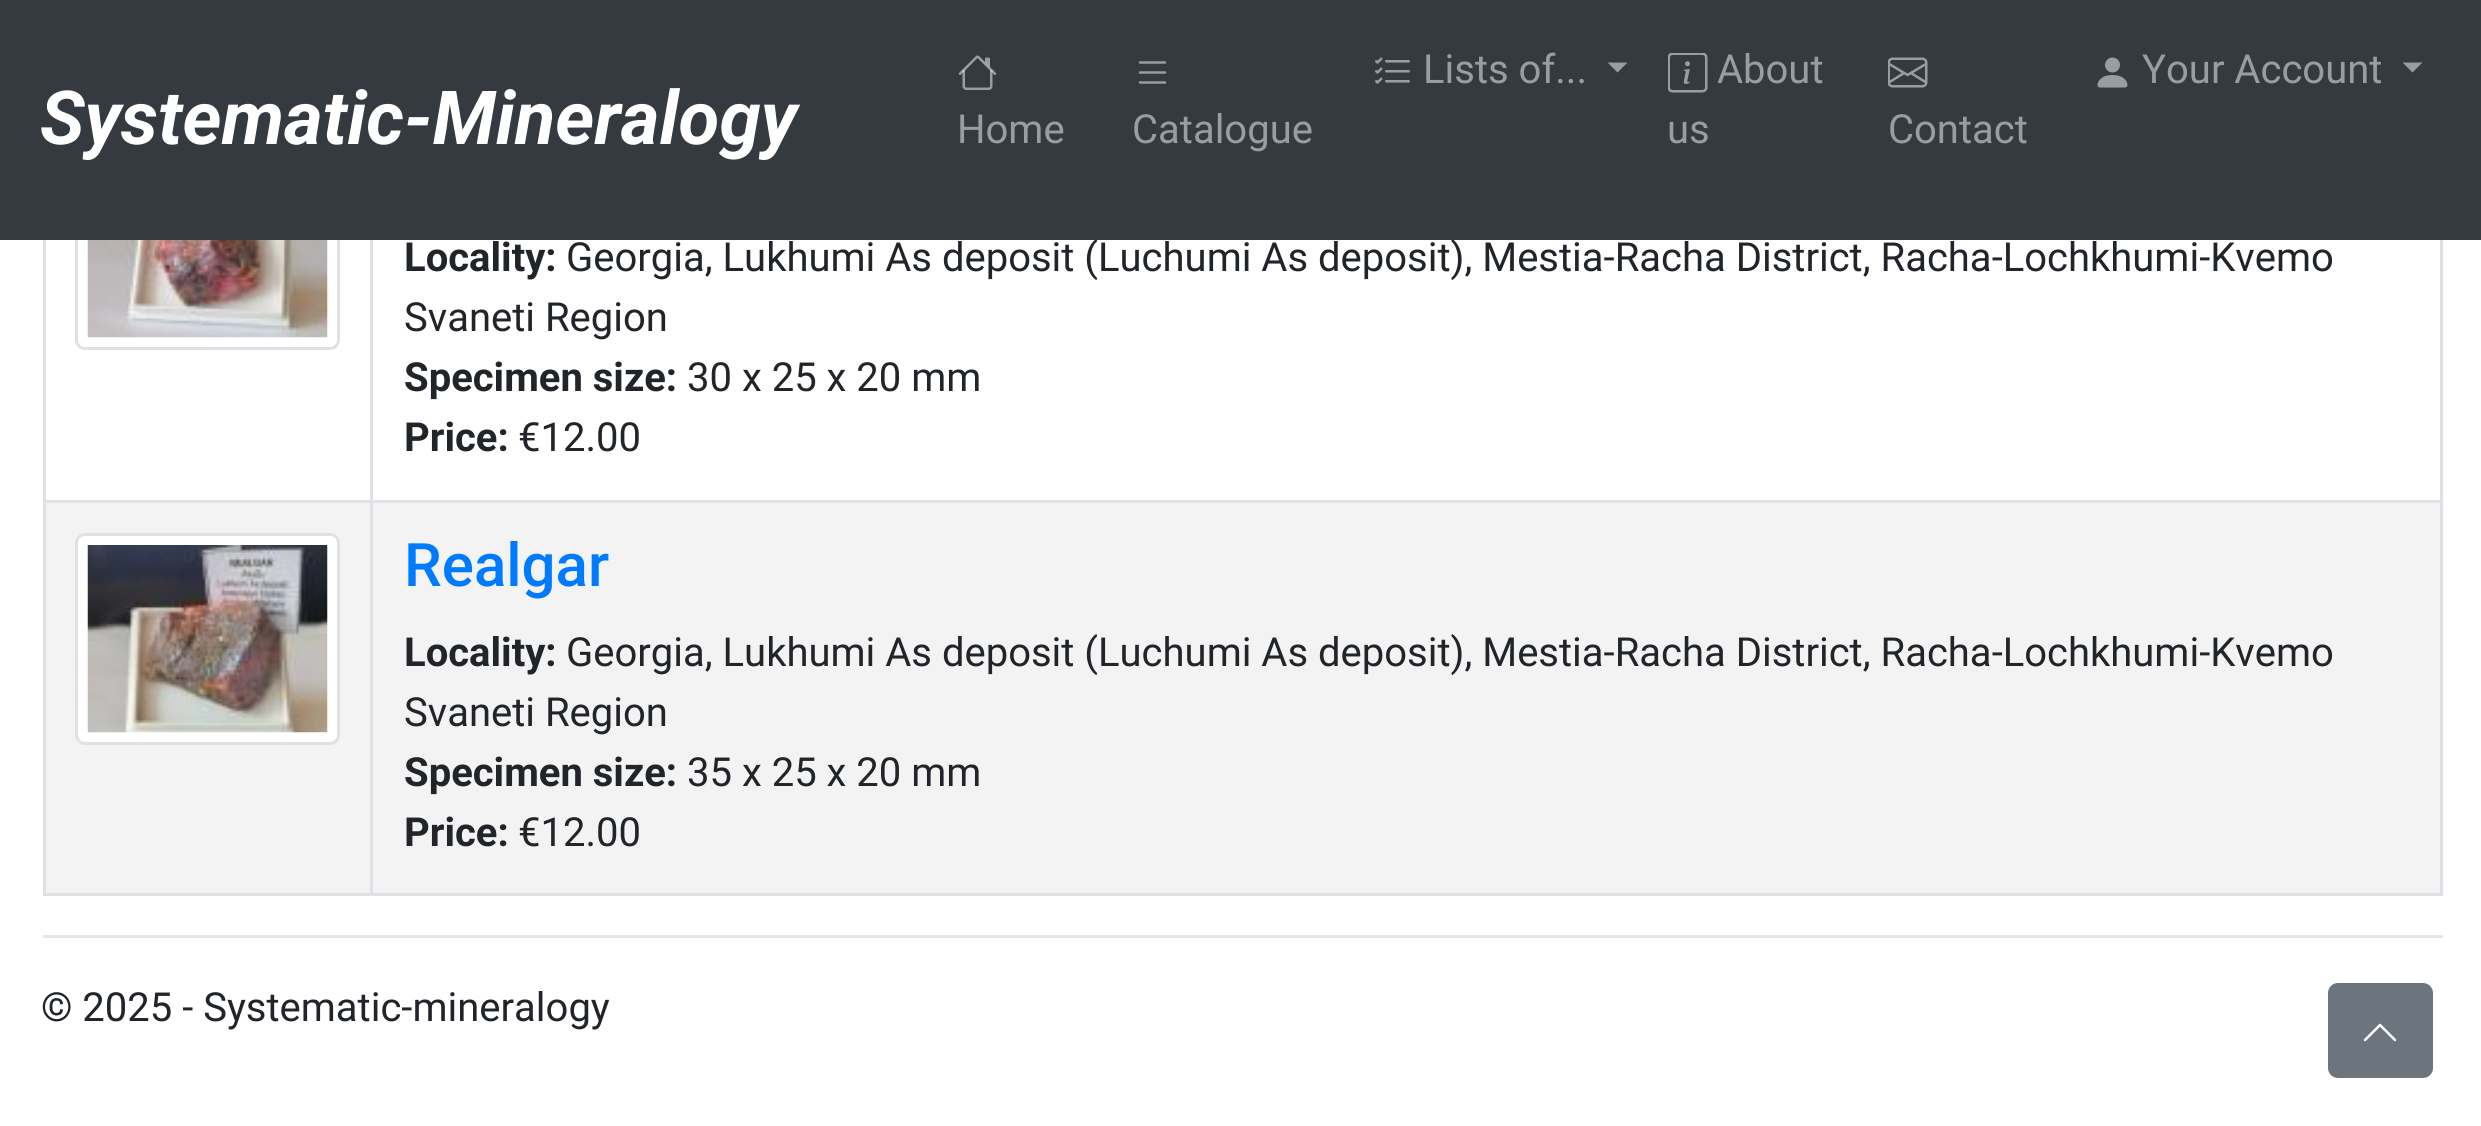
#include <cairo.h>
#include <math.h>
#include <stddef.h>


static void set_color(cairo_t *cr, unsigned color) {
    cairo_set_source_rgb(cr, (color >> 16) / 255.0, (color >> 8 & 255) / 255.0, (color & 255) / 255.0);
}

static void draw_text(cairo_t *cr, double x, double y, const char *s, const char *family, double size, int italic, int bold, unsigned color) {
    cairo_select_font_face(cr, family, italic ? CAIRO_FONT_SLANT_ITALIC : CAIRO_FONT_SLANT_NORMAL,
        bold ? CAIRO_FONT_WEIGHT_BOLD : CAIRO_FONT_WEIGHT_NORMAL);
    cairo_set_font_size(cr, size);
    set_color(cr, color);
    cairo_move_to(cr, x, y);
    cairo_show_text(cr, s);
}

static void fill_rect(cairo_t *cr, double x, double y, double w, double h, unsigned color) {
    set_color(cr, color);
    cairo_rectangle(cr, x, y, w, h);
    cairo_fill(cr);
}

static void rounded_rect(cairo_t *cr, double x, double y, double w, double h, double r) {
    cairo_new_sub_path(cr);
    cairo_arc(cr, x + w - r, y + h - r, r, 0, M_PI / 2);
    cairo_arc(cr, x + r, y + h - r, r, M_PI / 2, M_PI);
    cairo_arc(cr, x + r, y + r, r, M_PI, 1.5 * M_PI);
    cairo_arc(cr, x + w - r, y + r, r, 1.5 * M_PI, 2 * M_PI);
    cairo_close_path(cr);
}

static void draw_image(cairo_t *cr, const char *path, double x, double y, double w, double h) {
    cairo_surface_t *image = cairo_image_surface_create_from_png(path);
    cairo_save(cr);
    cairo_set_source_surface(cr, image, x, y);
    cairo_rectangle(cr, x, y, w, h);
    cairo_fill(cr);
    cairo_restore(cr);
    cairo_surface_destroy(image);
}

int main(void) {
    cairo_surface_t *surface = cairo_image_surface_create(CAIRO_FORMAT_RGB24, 2481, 1126);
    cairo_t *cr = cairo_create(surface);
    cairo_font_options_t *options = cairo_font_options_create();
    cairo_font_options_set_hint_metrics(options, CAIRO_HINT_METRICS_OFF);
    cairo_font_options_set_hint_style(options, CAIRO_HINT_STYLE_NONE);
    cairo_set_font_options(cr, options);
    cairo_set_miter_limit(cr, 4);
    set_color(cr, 0xFFFFFF);
    cairo_paint(cr);
    rounded_rect(cr, 76.5, 139.5, 262, 209, 8.5);
    set_color(cr, 0xDEE2E6);
    cairo_set_line_width(cr, 3);
    cairo_stroke(cr);
    draw_text(cr, 566, 271, "Georgia, Lukhumi As deposit (Luchumi As deposit), Mestia-Racha District, Racha-Lochkhumi-Kvemo", "Roboto", 40, 0, 0, 0x212529);
    fill_rect(cr, 0, 0, 2481, 240, 0x343A40);
    draw_text(cr, 40, 144, "Systematic-Mineralogy", "Roboto", 74.5, 1, 1, 0xFFFFFF);
    draw_image(cr, "assets/img1.png", 1375, 57, 35, 27);
    draw_text(cr, 1423, 83, "Lists of...", "Roboto", 40, 0, 0, 0x9A9DA0);
    cairo_new_path(cr);
    cairo_move_to(cr, 1607.5, 62.5);
    cairo_line_to(cr, 1627.5, 62.5);
    cairo_line_to(cr, 1617.5, 72.5);
    cairo_close_path(cr);
    cairo_fill(cr);
    draw_image(cr, "assets/img2.png", 1668, 53, 40, 40);
    draw_text(cr, 1717, 83, "About", "Roboto", 40, 0, 0, 0x9A9DA0);
    draw_text(cr, 1667, 143, "us", "Roboto", 40, 0, 0, 0x9A9DA0);
    draw_image(cr, "assets/img3.png", 2097, 57, 31, 31);
    draw_text(cr, 2142, 83, "Your Account", "Roboto", 40, 0, 0, 0x9A9DA0);
    cairo_new_path(cr);
    cairo_move_to(cr, 2402.5, 62.5);
    cairo_line_to(cr, 2422.5, 62.5);
    cairo_line_to(cr, 2412.5, 72.5);
    cairo_close_path(cr);
    cairo_fill(cr);
    draw_image(cr, "assets/img4.png", 958, 55, 39, 35);
    draw_text(cr, 957, 143, "Home", "Roboto", 40, 0, 0, 0x9A9DA0);
    draw_image(cr, "assets/img5.png", 1138, 61, 29, 23);
    draw_text(cr, 1132, 143, "Catalogue", "Roboto", 40, 0, 0, 0x9A9DA0);
    draw_image(cr, "assets/img6.png", 1888, 57, 40, 31);
    draw_text(cr, 1888, 143, "Contact", "Roboto", 40, 0, 0, 0x9A9DA0);
    fill_rect(cr, 2440, 240, 3, 655, 0xDEE2E6);
    fill_rect(cr, 43, 893, 2400, 3, 0xDEE2E6);
    fill_rect(cr, 43, 240, 3, 655, 0xDEE2E6);
    draw_image(cr, "assets/img7.png", 87, 240, 241, 98);
    fill_rect(cr, 370, 500, 2073, 3, 0xDEE2E6);
    fill_rect(cr, 46, 503, 2394, 390, 0xF3F3F3);
    fill_rect(cr, 370, 500, 3, 395, 0xDEE2E6);
    fill_rect(cr, 43, 500, 330, 3, 0xDEE2E6);
    fill_rect(cr, 370, 240, 3, 263, 0xDEE2E6);
    draw_text(cr, 404, 271, "Locality:", "Roboto", 40, 0, 1, 0x212529);
    draw_text(cr, 404, 331, "Svaneti Region", "Roboto", 40, 0, 0, 0x212529);
    draw_text(cr, 404, 391, "Specimen size:", "Roboto", 40, 0, 1, 0x212529);
    draw_text(cr, 687, 391, "30 x 25 x 20 mm", "Roboto", 40, 0, 0, 0x212529);
    draw_text(cr, 404, 451, "Price:", "Roboto", 40, 0, 1, 0x212529);
    draw_text(cr, 518, 451, "€12.00", "Roboto", 40, 0, 0, 0x212529);
    set_color(cr, 0xFFFFFF);
    rounded_rect(cr, 76.5, 534.5, 262, 209, 8.5);
    cairo_fill_preserve(cr);
    set_color(cr, 0xDEE2E6);
    cairo_stroke(cr);
    draw_image(cr, "assets/img8.png", 87, 545, 241, 188);
    draw_text(cr, 404, 586, "Realgar", "Roboto Medium", 60, 0, 0, 0x007BFF);
    draw_text(cr, 404, 666, "Locality:", "Roboto", 40, 0, 1, 0x212529);
    draw_text(cr, 566, 666, "Georgia, Lukhumi As deposit (Luchumi As deposit), Mestia-Racha District, Racha-Lochkhumi-Kvemo", "Roboto", 40, 0, 0, 0x212529);
    draw_text(cr, 404, 726, "Svaneti Region", "Roboto", 40, 0, 0, 0x212529);
    draw_text(cr, 404, 786, "Specimen size:", "Roboto", 40, 0, 1, 0x212529);
    draw_text(cr, 687, 786, "35 x 25 x 20 mm", "Roboto", 40, 0, 0, 0x212529);
    draw_text(cr, 404, 846, "Price:", "Roboto", 40, 0, 1, 0x212529);
    draw_text(cr, 518, 846, "€12.00", "Roboto", 40, 0, 0, 0x212529);
    fill_rect(cr, 43, 935, 2400, 3, 0xE6E6E6);
    draw_text(cr, 41, 1021, "© 2025 - Systematic-mineralogy", "Roboto", 40, 0, 0, 0x212529);
    set_color(cr, 0x6C757D);
    rounded_rect(cr, 2329.5, 984.5, 102, 92, 8.5);
    cairo_fill_preserve(cr);
    cairo_stroke(cr);
    draw_image(cr, "assets/img9.png", 2363, 1023, 34, 19);
    cairo_surface_write_to_png(surface, "output.png");
    cairo_font_options_destroy(options);
    cairo_destroy(cr);
    cairo_surface_destroy(surface);
    return 0;
}
